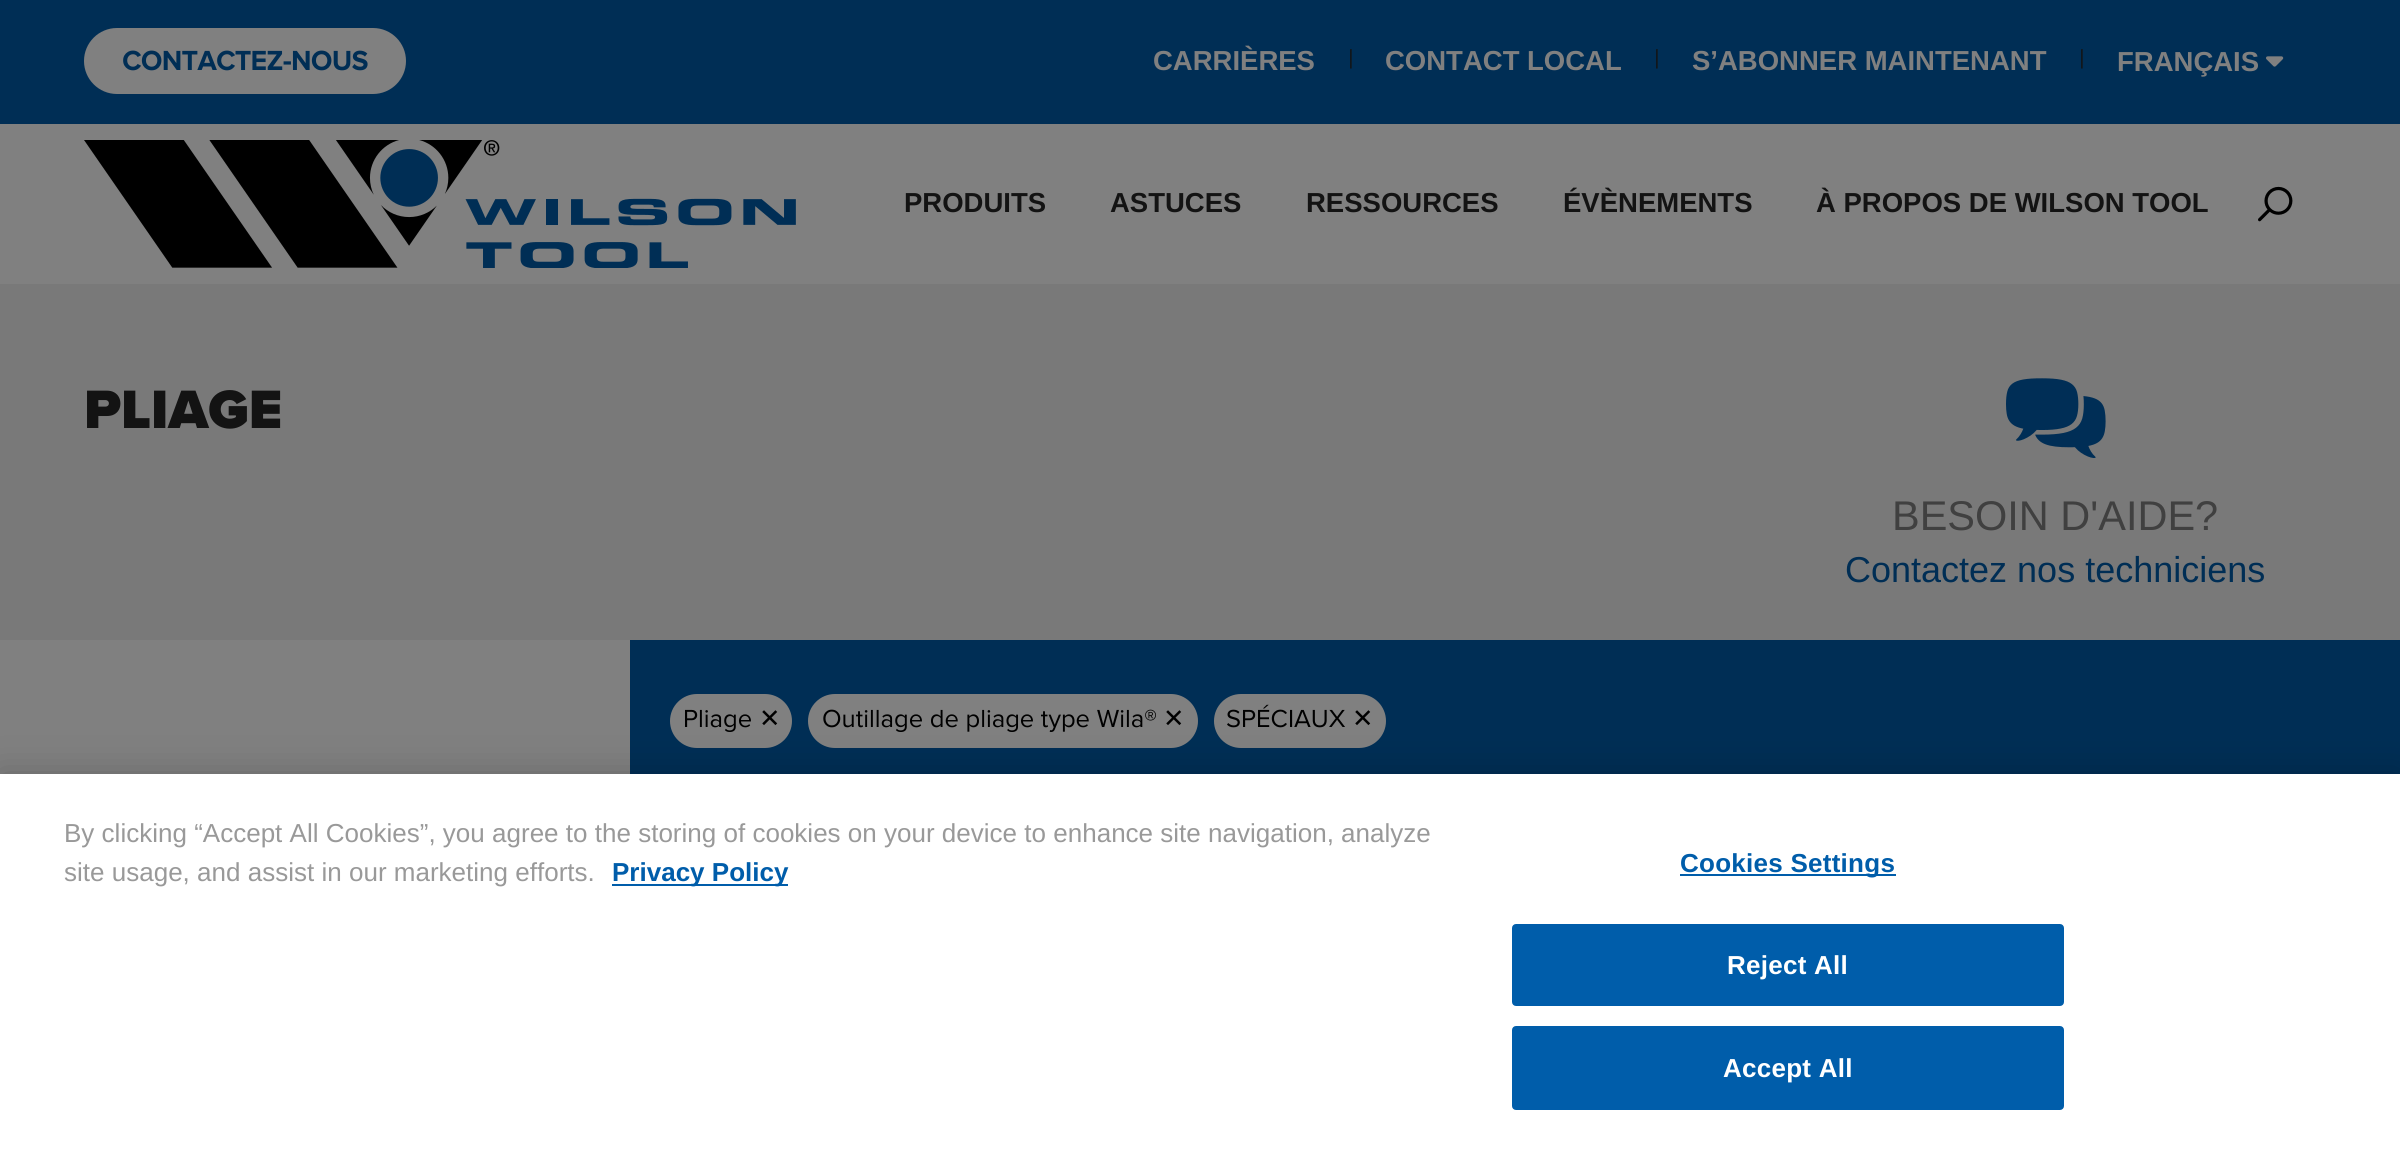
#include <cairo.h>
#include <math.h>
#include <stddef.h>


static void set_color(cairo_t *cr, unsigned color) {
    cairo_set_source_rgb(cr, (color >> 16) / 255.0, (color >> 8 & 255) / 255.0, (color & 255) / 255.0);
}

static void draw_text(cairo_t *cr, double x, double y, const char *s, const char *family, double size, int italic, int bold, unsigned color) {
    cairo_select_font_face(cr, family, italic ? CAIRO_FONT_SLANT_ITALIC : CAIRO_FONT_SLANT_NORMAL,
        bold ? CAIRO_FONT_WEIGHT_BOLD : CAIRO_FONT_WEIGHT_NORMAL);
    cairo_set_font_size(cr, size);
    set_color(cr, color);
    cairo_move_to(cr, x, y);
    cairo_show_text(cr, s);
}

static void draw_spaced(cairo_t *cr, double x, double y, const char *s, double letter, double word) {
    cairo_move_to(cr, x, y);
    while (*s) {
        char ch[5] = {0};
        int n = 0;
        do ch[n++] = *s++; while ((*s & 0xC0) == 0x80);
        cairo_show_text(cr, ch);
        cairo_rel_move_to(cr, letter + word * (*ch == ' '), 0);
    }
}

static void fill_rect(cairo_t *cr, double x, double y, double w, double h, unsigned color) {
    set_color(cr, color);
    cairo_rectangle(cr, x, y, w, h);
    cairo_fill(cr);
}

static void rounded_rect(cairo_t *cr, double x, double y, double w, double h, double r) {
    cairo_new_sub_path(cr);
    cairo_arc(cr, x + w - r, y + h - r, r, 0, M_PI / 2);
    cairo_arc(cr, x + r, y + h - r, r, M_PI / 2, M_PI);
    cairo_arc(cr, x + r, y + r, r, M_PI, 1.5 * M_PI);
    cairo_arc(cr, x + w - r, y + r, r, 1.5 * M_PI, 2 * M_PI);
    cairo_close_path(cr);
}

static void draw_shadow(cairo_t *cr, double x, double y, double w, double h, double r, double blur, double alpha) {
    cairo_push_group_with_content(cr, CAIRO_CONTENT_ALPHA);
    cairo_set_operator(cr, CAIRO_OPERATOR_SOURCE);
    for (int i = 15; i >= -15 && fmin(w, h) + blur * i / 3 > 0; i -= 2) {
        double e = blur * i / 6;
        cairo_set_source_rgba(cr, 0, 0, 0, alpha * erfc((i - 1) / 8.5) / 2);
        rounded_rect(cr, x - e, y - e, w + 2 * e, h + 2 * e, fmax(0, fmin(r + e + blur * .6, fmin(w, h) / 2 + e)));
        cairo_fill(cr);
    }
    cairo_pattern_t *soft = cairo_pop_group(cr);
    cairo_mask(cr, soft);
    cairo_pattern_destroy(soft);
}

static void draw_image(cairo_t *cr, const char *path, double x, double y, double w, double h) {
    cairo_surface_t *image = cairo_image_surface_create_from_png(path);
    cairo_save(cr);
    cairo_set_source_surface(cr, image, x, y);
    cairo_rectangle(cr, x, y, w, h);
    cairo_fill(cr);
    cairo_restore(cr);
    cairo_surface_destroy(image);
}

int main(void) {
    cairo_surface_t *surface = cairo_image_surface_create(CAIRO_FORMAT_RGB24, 2400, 1149);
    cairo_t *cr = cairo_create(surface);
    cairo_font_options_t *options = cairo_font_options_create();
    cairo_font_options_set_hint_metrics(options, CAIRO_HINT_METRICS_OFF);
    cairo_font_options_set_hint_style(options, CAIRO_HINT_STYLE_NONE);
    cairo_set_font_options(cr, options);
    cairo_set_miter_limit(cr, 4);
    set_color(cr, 0x808080);
    cairo_paint(cr);
    fill_rect(cr, 0, 0, 2400, 124, 0x002E55);
    set_color(cr, 0x808080);
    rounded_rect(cr, 84, 28, 322, 66, 33);
    cairo_fill(cr);
    draw_text(cr, 122, 70, "CONTACTEZ-NOUS", "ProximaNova", 27.5, 0, 1, 0x002E55);
    draw_text(cr, 1153, 70, "CARRIÈRES", "Liberation Sans", 27.5, 0, 1, 0x808080);
    draw_text(cr, 1348, 68, "|", "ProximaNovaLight", 27.5, 0, 0, 0x131313);
    draw_text(cr, 1385, 70, "CONTACT LOCAL", "Liberation Sans", 27.5, 0, 1, 0x808080);
    draw_text(cr, 1654, 68, "|", "ProximaNovaLight", 27.5, 0, 0, 0x131313);
    draw_text(cr, 1692, 70, "S’ABONNER MAINTENANT", "Liberation Sans", 27.5, 0, 1, 0x808080);
    draw_text(cr, 2079, 68, "|", "ProximaNovaLight", 27.5, 0, 0, 0x131313);
    draw_text(cr, 2117, 71, "FRANÇAIS", "Liberation Sans", 27.5, 0, 1, 0x808080);
    draw_image(cr, "assets/img1.png", 2266, 56, 18, 11);
    draw_image(cr, "assets/img2.png", 84, 140, 712, 128);
    draw_text(cr, 904, 212, "PRODUITS", "Liberation Sans", 27.5, 0, 1, 0x131313);
    draw_text(cr, 1110, 212, "ASTUCES", "Liberation Sans", 27.5, 0, 1, 0x131313);
    draw_text(cr, 1306, 212, "RESSOURCES", "Liberation Sans", 27.5, 0, 1, 0x131313);
    draw_text(cr, 1563, 212, "ÉVÈNEMENTS", "Liberation Sans", 27.5, 0, 1, 0x131313);
    draw_text(cr, 1816, 212, "À PROPOS DE WILSON TOOL", "Liberation Sans", 27.5, 0, 1, 0x131313);
    draw_image(cr, "assets/img3.png", 2258, 186, 35, 36);
    fill_rect(cr, 0, 284, 2400, 356, 0x797979);
    draw_text(cr, 84, 428, "PLIAGE", "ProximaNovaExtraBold", 56, 0, 0, 0x131313);
    draw_image(cr, "assets/img4.png", 2006, 378, 100, 80);
    draw_text(cr, 1892, 530, "BESOIN D'AIDE?", "Liberation Sans", 41.5, 0, 0, 0x404040);
    draw_text(cr, 1845, 582, "Contactez nos techniciens", "Liberation Sans", 36, 0, 0, 0x002E55);
    fill_rect(cr, 630, 640, 1770, 134, 0x002E55);
    set_color(cr, 0x808080);
    rounded_rect(cr, 670, 694, 122, 54, 27);
    cairo_fill(cr);
    draw_text(cr, 683, 727, "Pliage", "ProximaNovaLight", 25.6, 0, 0, 0x000000);
    draw_text(cr, 759, 727, "✕", "DejaVu Sans", 25.6, 0, 0, 0x000000);
    set_color(cr, 0x808080);
    rounded_rect(cr, 808, 694, 390, 54, 27);
    cairo_fill(cr);
    draw_text(cr, 822, 727, "Outillage de pliage type Wila®", "ProximaNovaLight", 25.6, 0, 0, 0x000000);
    draw_text(cr, 1163, 727, "✕", "DejaVu Sans", 25.6, 0, 0, 0x000000);
    set_color(cr, 0x808080);
    rounded_rect(cr, 1214, 694, 172, 54, 27);
    cairo_fill(cr);
    draw_text(cr, 1226, 727, "SPÉCIAUX", "ProximaNovaLight", 25.6, 0, 0, 0x000000);
    draw_text(cr, 1352, 727, "✕", "DejaVu Sans", 25.6, 0, 0, 0x000000);
    set_color(cr, 0x000000);
    draw_shadow(cr, 0, 774, 2400, 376, 0, 18, 0.2);
    fill_rect(cr, 0, 774, 2400, 375, 0xFFFFFF);
    draw_text(cr, 64, 842, "By clicking “Accept All Cookies”, you agree to the storing of cookies on your device to enhance site navigation, analyze", "Liberation Sans", 26.02, 0, 0, 0x999999);
    draw_text(cr, 64, 881, "site usage, and assist in our marketing efforts.", "Liberation Sans", 26.02, 0, 0, 0x999999);
    fill_rect(cr, 612, 884, 176, 2, 0x005DAA);
    draw_text(cr, 612, 881, "Privacy Policy", "Liberation Sans", 26.02, 0, 1, 0x005DAA);
    fill_rect(cr, 1680, 874, 216, 2, 0x005DAA);
    draw_spaced(cr, 1680, 872, "Cookies Settings", 0.25, 0);
    rounded_rect(cr, 1513, 925, 550, 80, 3);
    cairo_fill_preserve(cr);
    cairo_stroke(cr);
    set_color(cr, 0xFFFFFF);
    draw_spaced(cr, 1727, 974, "Reject All", 0.25, 0);
    set_color(cr, 0x005DAA);
    rounded_rect(cr, 1513, 1027, 550, 82, 3);
    cairo_fill_preserve(cr);
    cairo_stroke(cr);
    set_color(cr, 0xFFFFFF);
    draw_spaced(cr, 1723, 1077, "Accept All", 0.25, 0);
    cairo_surface_write_to_png(surface, "output.png");
    cairo_font_options_destroy(options);
    cairo_destroy(cr);
    cairo_surface_destroy(surface);
    return 0;
}
